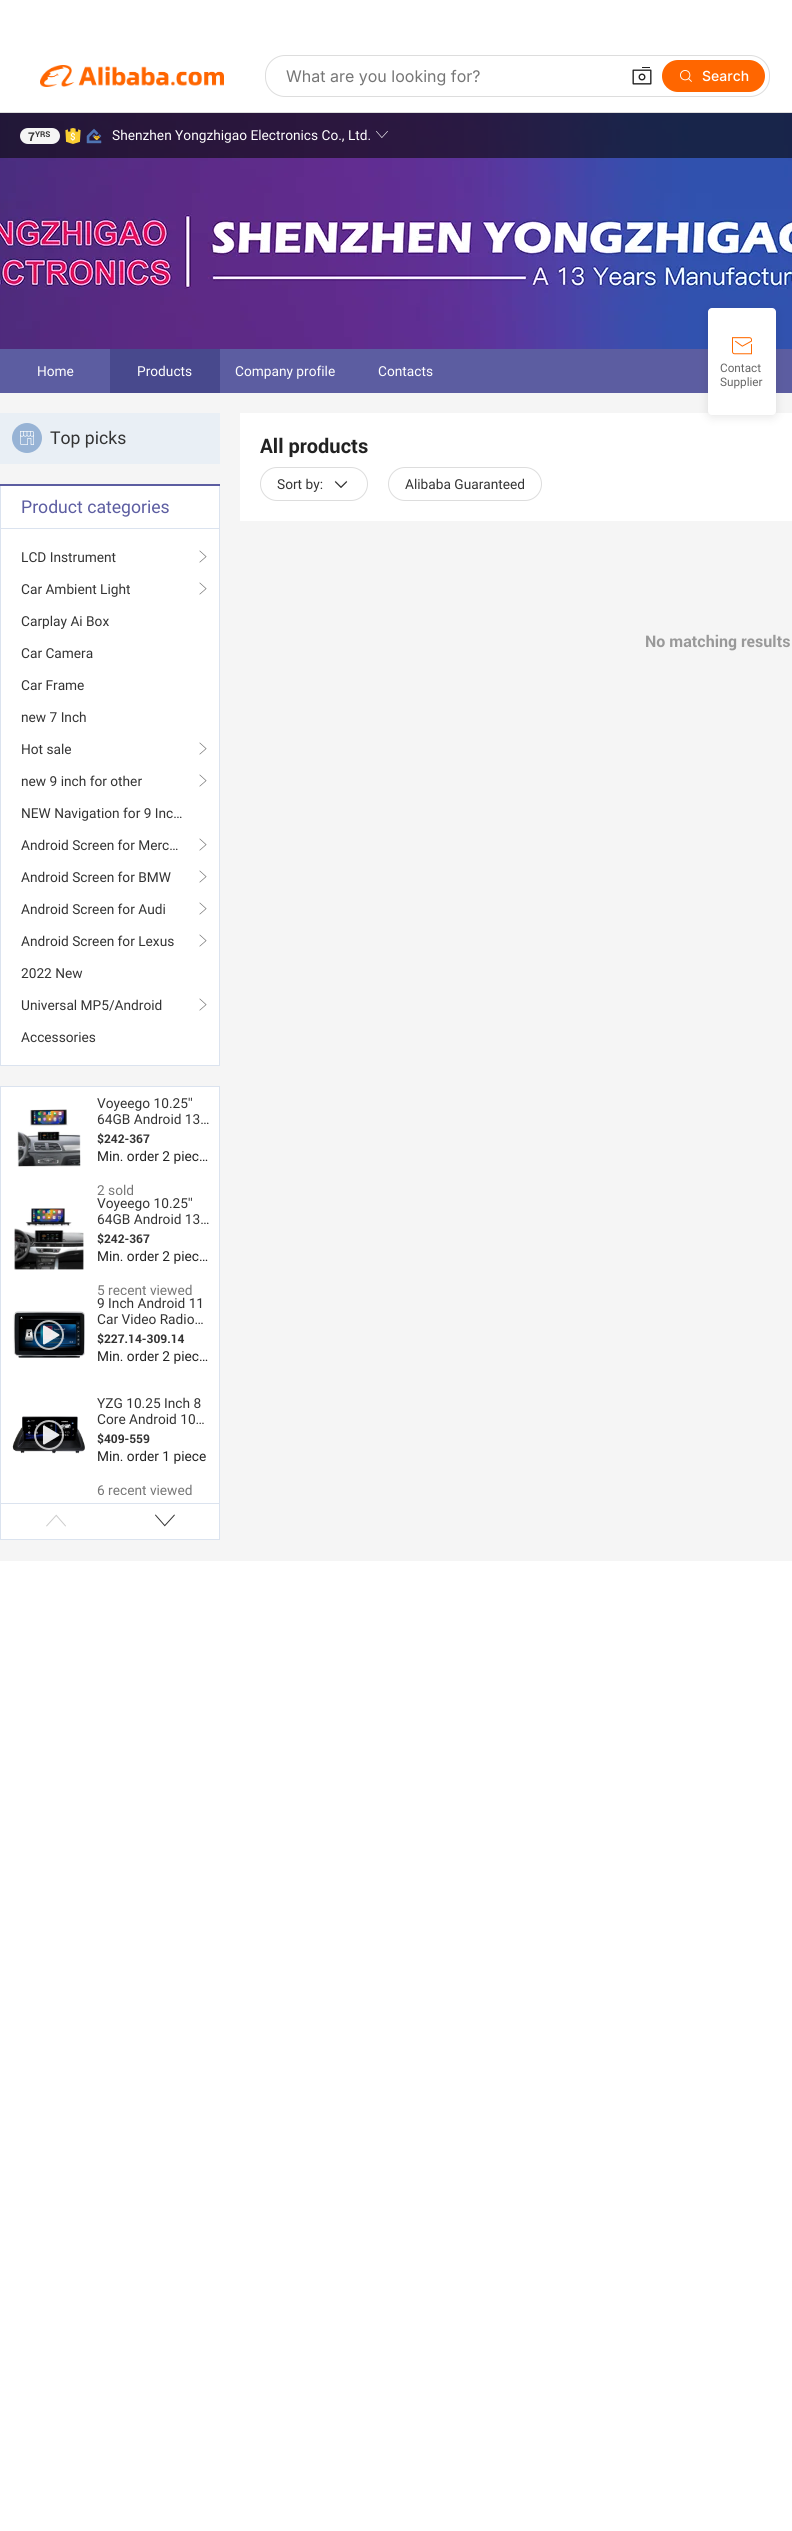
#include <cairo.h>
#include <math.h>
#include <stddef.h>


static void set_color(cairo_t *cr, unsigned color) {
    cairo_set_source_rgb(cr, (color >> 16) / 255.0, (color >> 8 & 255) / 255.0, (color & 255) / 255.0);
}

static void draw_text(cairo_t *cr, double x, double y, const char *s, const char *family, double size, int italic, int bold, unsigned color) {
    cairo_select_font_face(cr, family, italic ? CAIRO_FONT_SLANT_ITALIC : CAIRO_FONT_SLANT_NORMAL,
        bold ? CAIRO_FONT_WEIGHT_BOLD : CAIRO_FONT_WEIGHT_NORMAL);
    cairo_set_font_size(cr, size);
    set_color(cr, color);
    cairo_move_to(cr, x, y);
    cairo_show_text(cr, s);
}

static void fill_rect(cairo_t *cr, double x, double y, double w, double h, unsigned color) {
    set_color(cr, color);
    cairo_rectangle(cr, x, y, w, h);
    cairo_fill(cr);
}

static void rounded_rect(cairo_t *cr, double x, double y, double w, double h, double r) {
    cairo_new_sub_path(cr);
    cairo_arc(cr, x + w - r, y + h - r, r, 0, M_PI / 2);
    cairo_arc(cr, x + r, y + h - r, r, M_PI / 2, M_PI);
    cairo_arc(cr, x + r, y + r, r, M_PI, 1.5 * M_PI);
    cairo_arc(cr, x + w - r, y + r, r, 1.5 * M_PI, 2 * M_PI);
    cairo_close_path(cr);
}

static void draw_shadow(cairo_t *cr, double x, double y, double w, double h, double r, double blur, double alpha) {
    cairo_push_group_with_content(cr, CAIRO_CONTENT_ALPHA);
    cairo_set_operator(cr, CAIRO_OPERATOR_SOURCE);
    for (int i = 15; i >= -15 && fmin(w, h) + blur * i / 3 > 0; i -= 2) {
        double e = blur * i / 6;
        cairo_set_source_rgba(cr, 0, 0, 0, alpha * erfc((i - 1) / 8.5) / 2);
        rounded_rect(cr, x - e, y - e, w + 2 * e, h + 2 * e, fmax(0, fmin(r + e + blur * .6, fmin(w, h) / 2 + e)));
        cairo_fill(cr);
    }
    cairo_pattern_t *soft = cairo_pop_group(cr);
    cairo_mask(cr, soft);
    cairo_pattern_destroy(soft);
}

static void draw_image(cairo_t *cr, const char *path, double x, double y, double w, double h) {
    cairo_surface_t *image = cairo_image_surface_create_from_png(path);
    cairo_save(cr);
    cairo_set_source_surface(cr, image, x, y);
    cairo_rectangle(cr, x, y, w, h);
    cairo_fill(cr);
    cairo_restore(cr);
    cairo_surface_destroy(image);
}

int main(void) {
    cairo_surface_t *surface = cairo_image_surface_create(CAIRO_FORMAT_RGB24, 792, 2531);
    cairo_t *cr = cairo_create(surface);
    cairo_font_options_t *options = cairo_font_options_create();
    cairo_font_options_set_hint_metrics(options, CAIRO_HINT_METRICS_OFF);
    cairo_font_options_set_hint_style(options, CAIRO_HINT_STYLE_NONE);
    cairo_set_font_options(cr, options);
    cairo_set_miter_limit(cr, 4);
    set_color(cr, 0xFFFFFF);
    cairo_paint(cr);
    fill_rect(cr, 0, 112, 792, 1, 0xDDDDDD);
    draw_image(cr, "assets/img1.png", 40, 65, 184, 22);
    rounded_rect(cr, 265, 55, 505, 42, 20);
    cairo_fill(cr);
    set_color(cr, 0xFFFFFF);
    rounded_rect(cr, 266, 56, 503, 40, 19);
    cairo_fill(cr);
    draw_text(cr, 286, 82, "What are you looking for?", "Inter", 16, 0, 0, 0x767676);
    draw_image(cr, "assets/img2.png", 632, 67, 20, 18);
    set_color(cr, 0xFF6600);
    rounded_rect(cr, 662, 60, 103, 32, 16);
    cairo_fill(cr);
    draw_image(cr, "assets/img3.png", 680, 70, 12, 12);
    draw_text(cr, 702, 81, "Search", "Inter Medium", 14, 0, 0, 0xFFFFFF);
    draw_image(cr, "assets/img4.png", 0, 113, 792, 236);
    draw_image(cr, "assets/img5.png", 0, 113, 792, 236);
    cairo_set_source_rgba(cr, 0.2, 0.2, 0.2, 0.2);
    cairo_rectangle(cr, 0, 113, 792, 45);
    cairo_fill(cr);
    cairo_set_source_rgba(cr, 0, 0, 0, 0.5);
    cairo_rectangle(cr, 0, 113, 792, 45);
    cairo_fill(cr);
    set_color(cr, 0xF5F5F5);
    rounded_rect(cr, 20, 128, 40, 16, 8);
    cairo_fill(cr);
    draw_text(cr, 28, 141, "7", "Roboto", 12, 0, 1, 0x333333);
    draw_text(cr, 35, 137, "YRS", "Roboto", 8, 0, 1, 0x333333);
    draw_image(cr, "assets/img6.png", 65, 128, 16, 16);
    draw_image(cr, "assets/img7.png", 86, 128, 16, 16);
    draw_text(cr, 112, 140, "Shenzhen Yongzhigao Electronics Co., Ltd.", "Roboto", 14, 0, 0, 0xFFFFFF);
    draw_image(cr, "assets/img8.png", 376, 131, 12, 7);
    fill_rect(cr, 0, 349, 792, 44, 0x5C5DA1);
    draw_text(cr, 37, 376, "Home", "Roboto", 14, 0, 0, 0xFFFFFF);
    fill_rect(cr, 110, 349, 110, 44, 0x48498D);
    draw_text(cr, 137, 376, "Products", "Roboto", 14, 0, 0, 0xFFFFFF);
    draw_text(cr, 235, 376, "Company profile", "Roboto", 14, 0, 0, 0xFFFFFF);
    draw_text(cr, 378, 376, "Contacts", "Roboto", 14, 0, 0, 0xFFFFFF);
    fill_rect(cr, 0, 393, 792, 1168, 0xF5F5F5);
    fill_rect(cr, 0, 413, 220, 51, 0xE9EFF5);
    set_color(cr, 0x97B3D5);
    cairo_new_path(cr);
    cairo_arc(cr, 27, 438, 15, 0, 2 * M_PI);
    cairo_fill(cr);
    draw_image(cr, "assets/img9.png", 20, 431, 14, 14);
    draw_text(cr, 50, 444, "Top picks", "Roboto", 18, 0, 0, 0x333333);
    fill_rect(cr, 1, 486, 218, 579, 0xFFFFFF);
    fill_rect(cr, 0, 484, 220, 2, 0x5C5DA1);
    fill_rect(cr, 219, 486, 1, 580, 0xDBE3EF);
    fill_rect(cr, 0, 1065, 220, 1, 0xDBE3EF);
    fill_rect(cr, 0, 486, 1, 580, 0xDBE3EF);
    fill_rect(cr, 1, 528, 218, 1, 0xDBE3EF);
    draw_text(cr, 21, 513, "Product categories", "Roboto", 18, 0, 0, 0x5C5DA1);
    draw_text(cr, 21, 562, "LCD Instrument", "Roboto", 14, 0, 0, 0x333333);
    draw_image(cr, "assets/img10.png", 199, 550, 8, 13);
    draw_text(cr, 21, 594, "Car Ambient Light", "Roboto", 14, 0, 0, 0x333333);
    draw_image(cr, "assets/img10.png", 199, 582, 8, 13);
    draw_text(cr, 21, 626, "Carplay Ai Box", "Roboto", 14, 0, 0, 0x333333);
    draw_text(cr, 21, 658, "Car Camera", "Roboto", 14, 0, 0, 0x333333);
    draw_text(cr, 21, 690, "Car Frame", "Roboto", 14, 0, 0, 0x333333);
    draw_text(cr, 21, 722, "new 7 Inch", "Roboto", 14, 0, 0, 0x333333);
    draw_text(cr, 21, 754, "Hot sale", "Roboto", 14, 0, 0, 0x333333);
    draw_image(cr, "assets/img10.png", 199, 742, 8, 13);
    draw_text(cr, 21, 786, "new 9 inch for other", "Roboto", 14, 0, 0, 0x333333);
    draw_image(cr, "assets/img10.png", 199, 774, 8, 13);
    draw_text(cr, 21, 818, "NEW Navigation for 9 Inc…", "Roboto", 14, 0, 0, 0x333333);
    draw_text(cr, 21, 850, "Android Screen for Merc…", "Roboto", 14, 0, 0, 0x333333);
    draw_image(cr, "assets/img10.png", 199, 838, 8, 13);
    draw_text(cr, 21, 882, "Android Screen for BMW", "Roboto", 14, 0, 0, 0x333333);
    draw_image(cr, "assets/img10.png", 199, 870, 8, 13);
    draw_text(cr, 21, 914, "Android Screen for Audi", "Roboto", 14, 0, 0, 0x333333);
    draw_image(cr, "assets/img10.png", 199, 902, 8, 13);
    draw_text(cr, 21, 946, "Android Screen for Lexus", "Roboto", 14, 0, 0, 0x333333);
    draw_image(cr, "assets/img10.png", 199, 934, 8, 13);
    draw_text(cr, 21, 978, "2022 New", "Roboto", 14, 0, 0, 0x333333);
    draw_text(cr, 21, 1010, "Universal MP5/Android", "Roboto", 14, 0, 0, 0x333333);
    draw_image(cr, "assets/img10.png", 199, 998, 8, 13);
    draw_text(cr, 21, 1042, "Accessories", "Roboto", 14, 0, 0, 0x333333);
    set_color(cr, 0xFFFFFF);
    cairo_rectangle(cr, 0.5, 1086.5, 219, 453);
    cairo_fill_preserve(cr);
    set_color(cr, 0xDBE3EF);
    cairo_set_line_width(cr, 1);
    cairo_stroke(cr);
    draw_image(cr, "assets/img11.png", 17, 1109, 64, 58);
    draw_text(cr, 97, 1108, "Voyeego 10.25''", "Roboto", 14, 0, 0, 0x333333);
    draw_text(cr, 97, 1124, "64GB Android 13…", "Roboto", 14, 0, 0, 0x333333);
    draw_text(cr, 97, 1143, "$242-367", "Roboto", 12, 0, 1, 0x333333);
    draw_text(cr, 97, 1161, "Min. order 2 piec…", "Roboto", 14, 0, 0, 0x222222);
    cairo_save(cr);
    cairo_rectangle(cr, 97, 1095, 114, 100);
    cairo_clip(cr);
    draw_text(cr, 97, 1195, "2 sold", "Roboto", 14, 0, 0, 0x767676);
    cairo_restore(cr);
    draw_image(cr, "assets/img12.png", 14, 1208, 70, 62);
    draw_text(cr, 97, 1208, "Voyeego 10.25''", "Roboto", 14, 0, 0, 0x333333);
    draw_text(cr, 97, 1224, "64GB Android 13…", "Roboto", 14, 0, 0, 0x333333);
    draw_text(cr, 97, 1243, "$242-367", "Roboto", 12, 0, 1, 0x333333);
    draw_text(cr, 97, 1261, "Min. order 2 piec…", "Roboto", 14, 0, 0, 0x222222);
    cairo_save(cr);
    cairo_rectangle(cr, 97, 1195, 114, 100);
    cairo_clip(cr);
    draw_text(cr, 97, 1295, "5 recent viewed", "Roboto", 14, 0, 0, 0x767676);
    cairo_restore(cr);
    draw_image(cr, "assets/img13.png", 13, 1311, 72, 47);
    cairo_set_source_rgba(cr, 0, 0, 0, 0.27);
    cairo_arc(cr, 49, 1335, 15, 0, 2 * M_PI);
    cairo_fill(cr);
    cairo_arc(cr, 49, 1335, 14, 0, 2 * M_PI);
    cairo_set_source_rgba(cr, 1, 1, 1, 0.72);
    cairo_set_line_width(cr, 2);
    cairo_stroke(cr);
    draw_image(cr, "assets/img14.png", 42, 1325, 18, 20);
    draw_text(cr, 97, 1308, "9 Inch Android 11", "Roboto", 14, 0, 0, 0x333333);
    draw_text(cr, 97, 1324, "Car Video Radio…", "Roboto", 14, 0, 0, 0x333333);
    draw_text(cr, 97, 1343, "$227.14-309.14", "Roboto", 12, 0, 1, 0x333333);
    draw_text(cr, 97, 1361, "Min. order 2 piec…", "Roboto", 14, 0, 0, 0x222222);
    draw_image(cr, "assets/img15.png", 12, 1416, 73, 38);
    cairo_set_source_rgba(cr, 0, 0, 0, 0.27);
    cairo_arc(cr, 49, 1435, 15, 0, 2 * M_PI);
    cairo_fill(cr);
    cairo_arc(cr, 49, 1435, 14, 0, 2 * M_PI);
    cairo_set_source_rgba(cr, 1, 1, 1, 0.72);
    cairo_stroke(cr);
    draw_image(cr, "assets/img16.png", 42, 1425, 18, 20);
    draw_text(cr, 97, 1408, "YZG 10.25 Inch 8", "Roboto", 14, 0, 0, 0x333333);
    draw_text(cr, 97, 1424, "Core Android 10…", "Roboto", 14, 0, 0, 0x333333);
    draw_text(cr, 97, 1443, "$409-559", "Roboto", 12, 0, 1, 0x333333);
    draw_text(cr, 97, 1461, "Min. order 1 piece", "Roboto", 14, 0, 0, 0x222222);
    cairo_save(cr);
    cairo_rectangle(cr, 97, 1395, 114, 100);
    cairo_clip(cr);
    draw_text(cr, 97, 1495, "6 recent viewed", "Roboto", 14, 0, 0, 0x767676);
    cairo_restore(cr);
    fill_rect(cr, 1, 1503, 218, 1, 0xDBE3EF);
    draw_image(cr, "assets/img17.png", 46, 1514, 20, 13);
    draw_image(cr, "assets/img18.png", 155, 1514, 20, 13);
    fill_rect(cr, 240, 413, 552, 108, 0xFFFFFF);
    draw_text(cr, 260, 453, "All products", "Roboto", 20, 0, 1, 0x222222);
    rounded_rect(cr, 260.5, 467.5, 107, 33, 16.5);
    set_color(cr, 0xDDDDDD);
    cairo_set_line_width(cr, 1);
    cairo_stroke(cr);
    draw_text(cr, 277, 489, "Sort by:", "Roboto", 14, 0, 0, 0x333333);
    draw_image(cr, "assets/img19.png", 334, 480, 14, 8);
    rounded_rect(cr, 388.5, 467.5, 153, 33, 16.5);
    set_color(cr, 0xDDDDDD);
    cairo_stroke(cr);
    draw_text(cr, 405, 489, "Alibaba Guaranteed", "Roboto", 14, 0, 0, 0x333333);
    draw_text(cr, 645, 647, "No matching results", "Roboto", 16, 0, 1, 0x999999);
    set_color(cr, 0x000000);
    draw_shadow(cr, 708, 310, 68, 107, 4, 5, 0.1);
    set_color(cr, 0xFFFFFF);
    rounded_rect(cr, 708, 308, 68, 107, 4);
    cairo_fill(cr);
    draw_image(cr, "assets/img20.png", 732, 337, 20, 18);
    draw_text(cr, 720, 372, "Contact", "Roboto", 12, 0, 0, 0x666666);
    draw_text(cr, 720, 386, "Supplier", "Roboto", 12, 0, 0, 0x666666);
    cairo_surface_write_to_png(surface, "output.png");
    cairo_font_options_destroy(options);
    cairo_destroy(cr);
    cairo_surface_destroy(surface);
    return 0;
}
